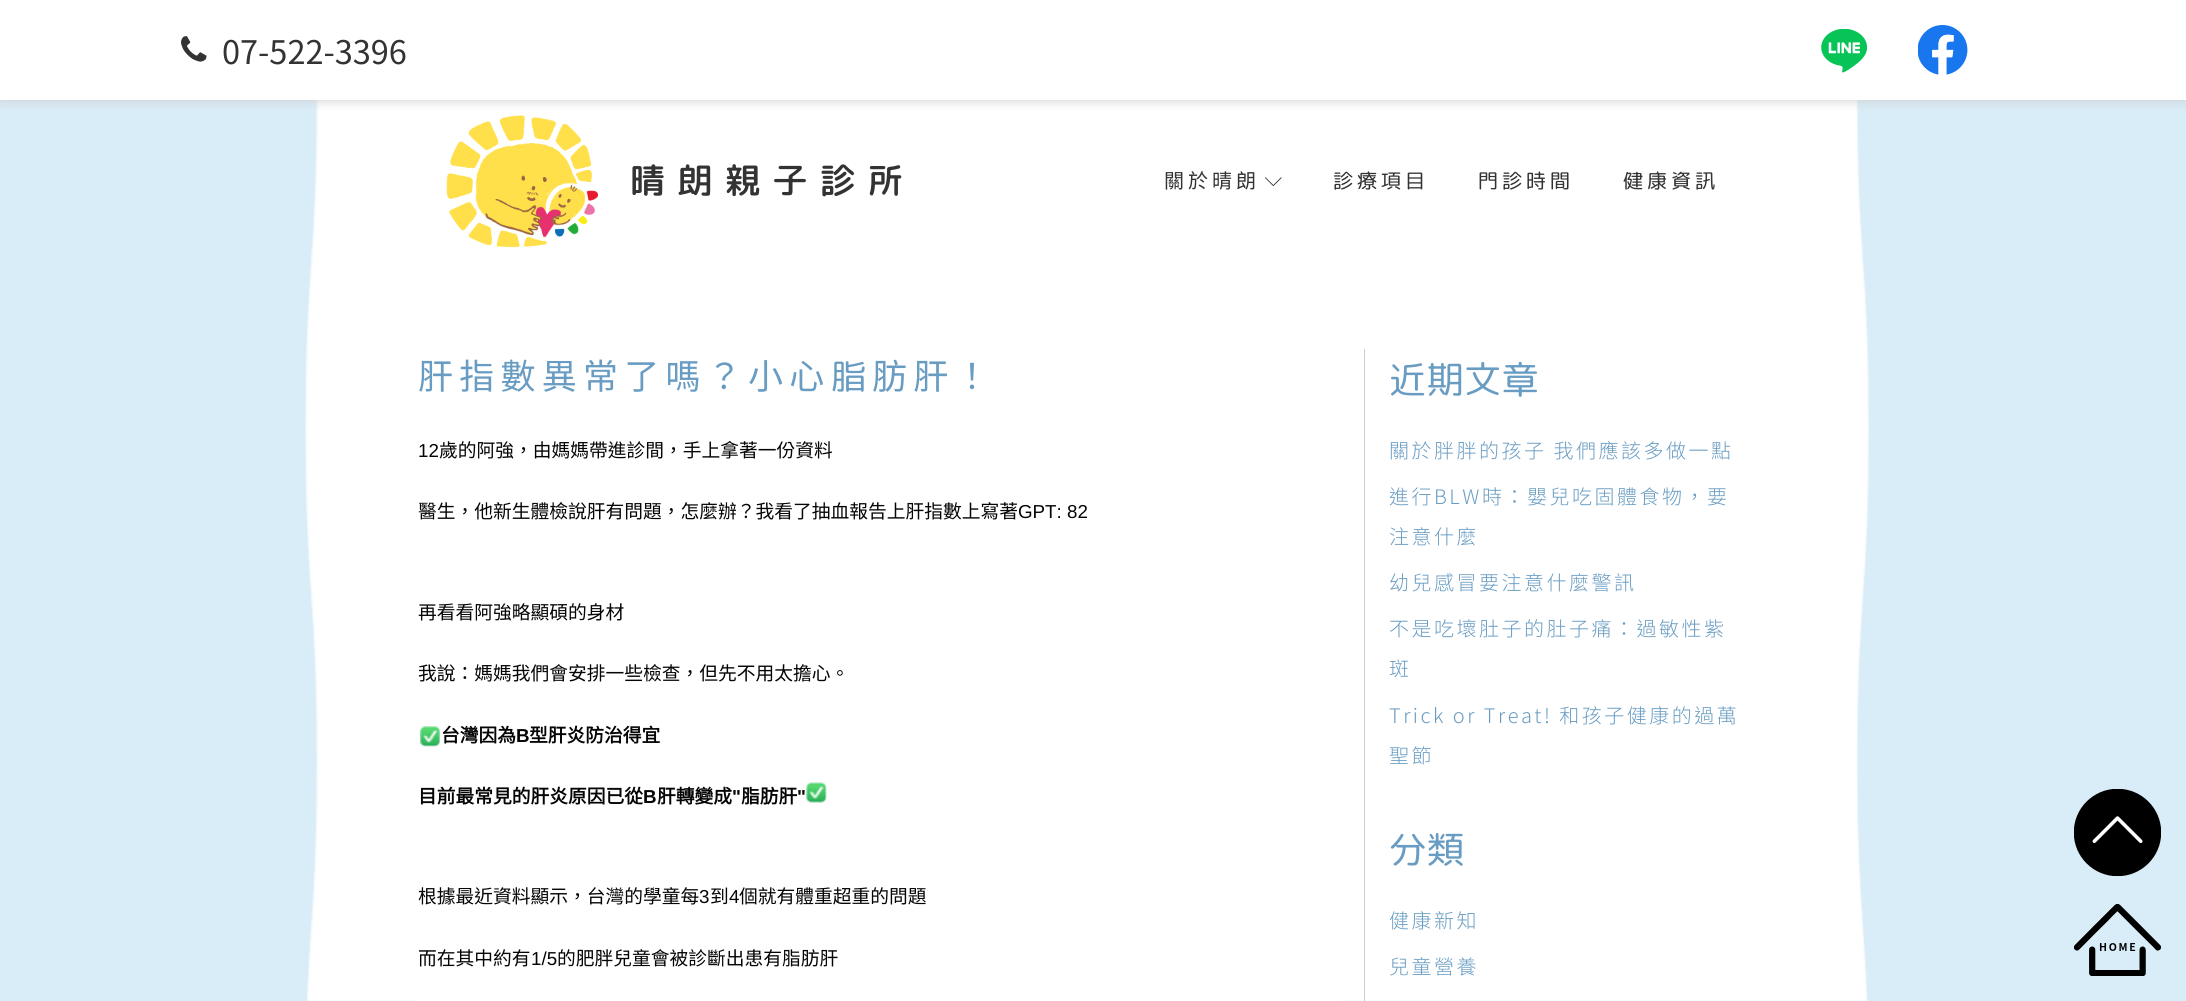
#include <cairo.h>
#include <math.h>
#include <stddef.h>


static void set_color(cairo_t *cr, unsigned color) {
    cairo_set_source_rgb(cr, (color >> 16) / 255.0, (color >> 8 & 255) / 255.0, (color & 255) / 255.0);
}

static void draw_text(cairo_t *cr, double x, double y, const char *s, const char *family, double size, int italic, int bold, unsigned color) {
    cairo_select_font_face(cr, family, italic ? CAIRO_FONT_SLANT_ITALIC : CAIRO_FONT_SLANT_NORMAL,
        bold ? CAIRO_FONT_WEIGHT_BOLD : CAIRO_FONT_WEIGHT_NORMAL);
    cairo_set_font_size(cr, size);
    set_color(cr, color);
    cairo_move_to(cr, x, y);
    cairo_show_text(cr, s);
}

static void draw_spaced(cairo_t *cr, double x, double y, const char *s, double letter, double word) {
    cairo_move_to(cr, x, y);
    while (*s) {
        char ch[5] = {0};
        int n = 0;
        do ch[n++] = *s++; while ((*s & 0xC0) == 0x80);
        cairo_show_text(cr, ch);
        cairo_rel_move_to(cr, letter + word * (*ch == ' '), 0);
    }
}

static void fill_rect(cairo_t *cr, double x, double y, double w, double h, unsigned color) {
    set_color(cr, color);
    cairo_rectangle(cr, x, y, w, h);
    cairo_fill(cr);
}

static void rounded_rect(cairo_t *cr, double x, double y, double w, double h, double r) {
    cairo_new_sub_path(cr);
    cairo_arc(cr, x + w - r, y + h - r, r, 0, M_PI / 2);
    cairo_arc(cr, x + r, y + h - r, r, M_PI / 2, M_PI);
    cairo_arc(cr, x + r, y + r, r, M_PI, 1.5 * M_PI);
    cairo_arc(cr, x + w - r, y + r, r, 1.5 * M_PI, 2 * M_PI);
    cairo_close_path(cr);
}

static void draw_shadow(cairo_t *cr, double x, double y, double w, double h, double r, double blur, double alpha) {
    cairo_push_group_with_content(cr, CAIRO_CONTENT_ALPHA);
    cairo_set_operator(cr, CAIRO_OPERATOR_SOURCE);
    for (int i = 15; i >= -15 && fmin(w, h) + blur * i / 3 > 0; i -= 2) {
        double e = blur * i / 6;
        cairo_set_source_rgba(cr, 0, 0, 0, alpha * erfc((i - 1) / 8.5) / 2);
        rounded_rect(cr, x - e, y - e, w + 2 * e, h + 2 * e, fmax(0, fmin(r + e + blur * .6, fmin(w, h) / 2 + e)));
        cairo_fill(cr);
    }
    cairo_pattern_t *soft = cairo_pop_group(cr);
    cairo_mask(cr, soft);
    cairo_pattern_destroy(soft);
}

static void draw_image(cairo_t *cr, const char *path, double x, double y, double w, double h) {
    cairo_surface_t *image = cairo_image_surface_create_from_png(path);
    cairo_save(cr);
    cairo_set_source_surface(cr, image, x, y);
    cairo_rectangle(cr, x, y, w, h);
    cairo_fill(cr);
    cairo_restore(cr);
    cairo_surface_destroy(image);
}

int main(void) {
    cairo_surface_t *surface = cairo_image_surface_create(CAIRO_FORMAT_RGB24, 2186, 1001);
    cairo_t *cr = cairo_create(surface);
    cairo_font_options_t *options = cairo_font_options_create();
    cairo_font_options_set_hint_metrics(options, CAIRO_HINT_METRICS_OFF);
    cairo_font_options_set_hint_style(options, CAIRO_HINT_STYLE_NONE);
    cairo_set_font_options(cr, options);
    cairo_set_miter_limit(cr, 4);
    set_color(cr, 0xD9EDF8);
    cairo_paint(cr);
    draw_image(cr, "assets/img4.png", 304, 100, 1566, 175);
    draw_image(cr, "assets/img5.png", 446, 115, 152, 133);
    set_color(cr, 0xCCCCCC);
    draw_shadow(cr, 0, 0, 2186, 100, 0, 6, 1);
    fill_rect(cr, 0, 0, 2186, 100, 0xFFFFFF);
    draw_image(cr, "assets/img1.png", 181, 36, 26, 26);
    draw_text(cr, 222, 64, "07-522-3396", "Noto Sans TC", 32.5, 0, 0, 0x333333);
    draw_image(cr, "assets/img2.png", 1821, 29, 47, 44);
    draw_image(cr, "assets/img3.png", 1918, 25, 50, 50);
    cairo_select_font_face(cr, "Rounded Mplus 1c Medium", CAIRO_FONT_SLANT_NORMAL, CAIRO_FONT_WEIGHT_NORMAL);
    cairo_set_font_size(cr, 35);
    draw_spaced(cr, 630, 193, "晴朗親子診所", 12.5, 0);
    cairo_select_font_face(cr, "Noto Sans CJK TC", CAIRO_FONT_SLANT_NORMAL, CAIRO_FONT_WEIGHT_NORMAL);
    cairo_set_font_size(cr, 20);
    draw_spaced(cr, 1164, 188, "關於晴朗", 4, 0);
    draw_image(cr, "assets/img6.png", 1265, 177, 17, 9);
    cairo_select_font_face(cr, "Rounded Mplus 1c", CAIRO_FONT_SLANT_NORMAL, CAIRO_FONT_WEIGHT_NORMAL);
    draw_spaced(cr, 1333, 188, "診療項目", 4, 0);
    draw_spaced(cr, 1478, 188, "門診時間", 4, 0);
    draw_spaced(cr, 1623, 188, "健康資訊", 4, 0);
    draw_image(cr, "assets/img7.png", 305, 275, 1564, 726);
    cairo_select_font_face(cr, "Noto Sans CJK TC", CAIRO_FONT_SLANT_NORMAL, CAIRO_FONT_WEIGHT_NORMAL);
    cairo_set_font_size(cr, 35);
    set_color(cr, 0x689CC2);
    draw_spaced(cr, 418, 389, "肝指數異常了嗎？小心", 6.25, 0);
    cairo_select_font_face(cr, "Rounded Mplus 1c", CAIRO_FONT_SLANT_NORMAL, CAIRO_FONT_WEIGHT_NORMAL);
    draw_spaced(cr, 831, 389, "脂", 6.25, 0);
    cairo_select_font_face(cr, "Noto Sans CJK TC", CAIRO_FONT_SLANT_NORMAL, CAIRO_FONT_WEIGHT_NORMAL);
    draw_spaced(cr, 872, 389, "肪肝！", 6.25, 0);
    draw_text(cr, 418, 457, "12", "Liberation Sans", 18.75, 0, 0, 0x050505);
    draw_text(cr, 439, 457, "歲的阿強，由媽媽帶進診間，手上拿著一份資料", "Noto Sans CJK TC", 18.75, 0, 0, 0x050505);
    draw_text(cr, 418, 518, "醫生，他新生體檢說肝有問題，怎麼辦？我看了抽血報告上肝指數上寫著", "Noto Sans CJK TC", 18.75, 0, 0, 0x050505);
    draw_text(cr, 1018, 518, "GPT: 82", "Liberation Sans", 18.75, 0, 0, 0x050505);
    draw_text(cr, 418, 619, "再看看阿強略顯碩的身材", "Noto Sans CJK TC", 18.75, 0, 0, 0x050505);
    draw_text(cr, 418, 680, "我說：媽媽我們會安排一些檢查，但先不用太擔心。", "Noto Sans CJK TC", 18.75, 0, 0, 0x050505);
    draw_image(cr, "assets/img8.png", 420, 726, 20, 21);
    draw_text(cr, 441, 742, "台灣因為", "Noto Sans CJK TC", 18.75, 0, 1, 0x050505);
    draw_text(cr, 516, 742, "B", "Liberation Sans", 18.75, 0, 1, 0x050505);
    draw_text(cr, 529, 742, "型肝炎防治得宜", "Noto Sans CJK TC", 18.75, 0, 1, 0x050505);
    draw_text(cr, 418, 803, "目前最常見的肝炎原因已從", "Noto Sans CJK TC", 18.75, 0, 1, 0x050505);
    draw_text(cr, 643, 803, "B", "Liberation Sans", 18.75, 0, 1, 0x050505);
    draw_text(cr, 657, 803, "肝轉變成", "Noto Sans CJK TC", 18.75, 0, 1, 0x050505);
    draw_text(cr, 732, 803, "\"", "Liberation Sans", 18.75, 0, 1, 0x050505);
    draw_text(cr, 741, 803, "脂肪肝", "Noto Sans CJK TC", 18.75, 0, 1, 0x050505);
    draw_text(cr, 797, 803, "\"", "Liberation Sans", 18.75, 0, 1, 0x050505);
    draw_image(cr, "assets/img9.png", 806, 782, 21, 21);
    fill_rect(cr, 419, 1000, 920, 1, 0xFFFFFF);
    draw_text(cr, 418, 903, "根據最近資料顯示，台灣的學童每", "Noto Sans CJK TC", 18.75, 0, 0, 0x050505);
    draw_text(cr, 699, 903, "3", "Liberation Sans", 18.75, 0, 0, 0x050505);
    draw_text(cr, 710, 903, "到", "Noto Sans CJK TC", 18.75, 0, 0, 0x050505);
    draw_text(cr, 729, 903, "4", "Liberation Sans", 18.75, 0, 0, 0x050505);
    draw_text(cr, 739, 903, "個就有體重超重的問題", "Noto Sans CJK TC", 18.75, 0, 0, 0x050505);
    draw_text(cr, 418, 965, "而在其中約有", "Noto Sans CJK TC", 18.75, 0, 0, 0x050505);
    draw_text(cr, 531, 965, "1/5", "Liberation Sans", 18.75, 0, 0, 0x050505);
    draw_text(cr, 557, 965, "的肥胖兒童會被診斷出患有脂肪肝", "Noto Sans CJK TC", 18.75, 0, 0, 0x050505);
    fill_rect(cr, 1364, 349, 1, 652, 0xCCCCCC);
    draw_text(cr, 1389, 393, "近期文章", "Rounded Mplus 1c", 37.5, 0, 0, 0x689CC2);
    cairo_select_font_face(cr, "Noto Sans TC Light", CAIRO_FONT_SLANT_NORMAL, CAIRO_FONT_WEIGHT_NORMAL);
    cairo_set_font_size(cr, 20);
    draw_spaced(cr, 1389, 458, "關於胖胖的孩子 我們應該多做一點", 2.5, 0);
    draw_spaced(cr, 1389, 504, "進行BLW時：嬰兒吃固體食物，要", 2.5, 0);
    draw_spaced(cr, 1389, 544, "注意什麼", 2.5, 0);
    draw_spaced(cr, 1389, 590, "幼兒感冒要注意什麼警訊", 2.5, 0);
    draw_spaced(cr, 1389, 636, "不是吃壞肚子的肚子痛：過敏性紫", 2.5, 0);
    draw_spaced(cr, 1389, 676, "斑", 2.5, 0);
    draw_spaced(cr, 1389, 723, "Trick or Treat! 和孩子健康的過萬", 2.5, 0);
    draw_spaced(cr, 1389, 763, "聖節", 2.5, 0);
    draw_text(cr, 1389, 863, "分類", "Rounded Mplus 1c", 37.5, 0, 0, 0x689CC2);
    cairo_select_font_face(cr, "Noto Sans TC Light", CAIRO_FONT_SLANT_NORMAL, CAIRO_FONT_WEIGHT_NORMAL);
    cairo_set_font_size(cr, 20);
    draw_spaced(cr, 1389, 928, "健康新知", 2.5, 0);
    draw_spaced(cr, 1389, 974, "兒童營養", 2.5, 0);
    draw_image(cr, "assets/img10.png", 2074, 789, 87, 87);
    draw_image(cr, "assets/img11.png", 2074, 904, 87, 72);
    cairo_surface_write_to_png(surface, "output.png");
    cairo_font_options_destroy(options);
    cairo_destroy(cr);
    cairo_surface_destroy(surface);
    return 0;
}
